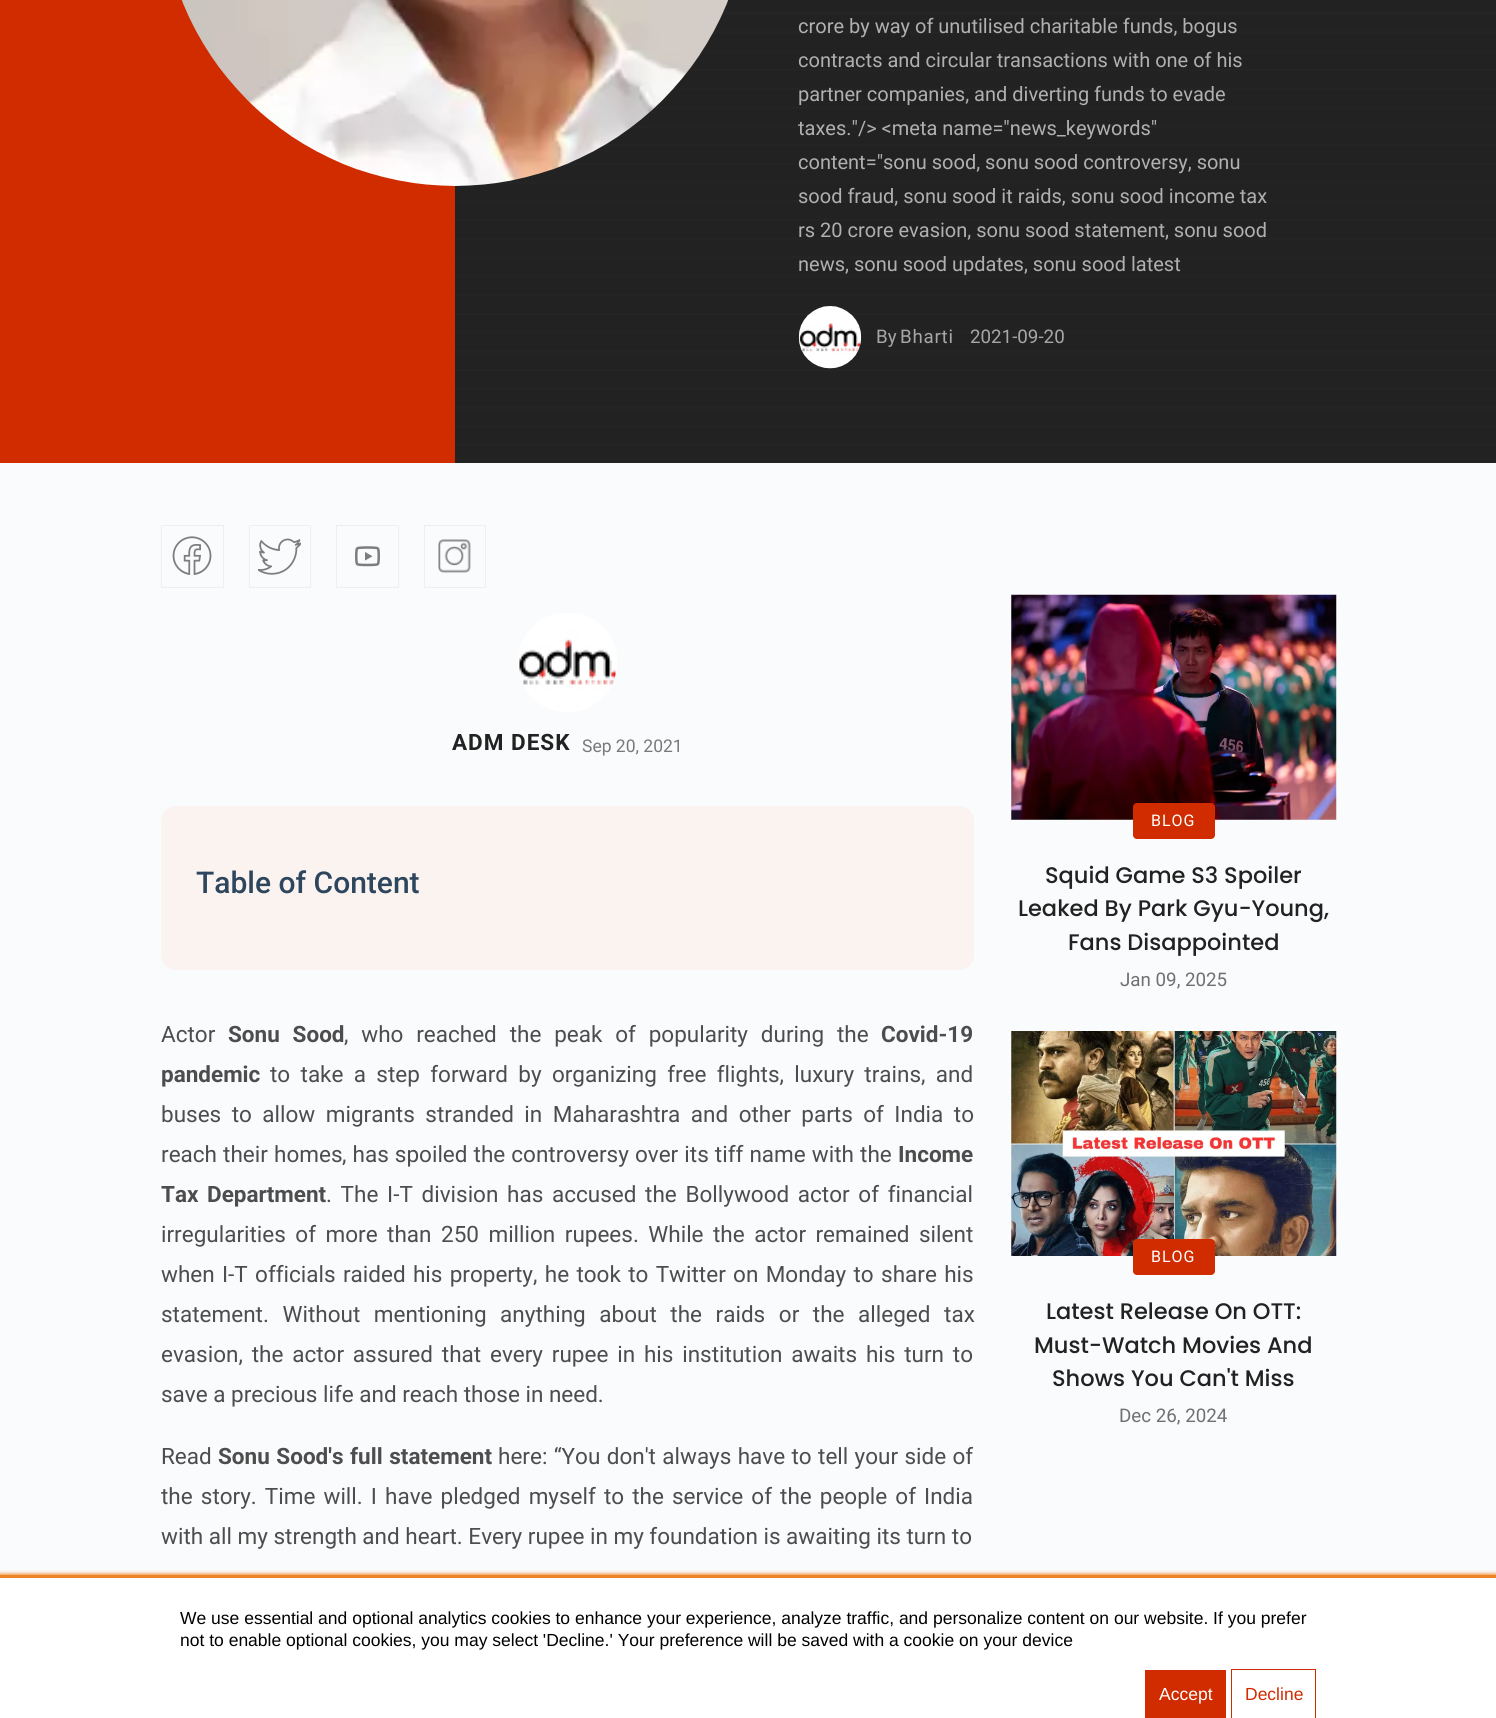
#include <cairo.h>
#include <math.h>
#include <stddef.h>


static void set_color(cairo_t *cr, unsigned color) {
    cairo_set_source_rgb(cr, (color >> 16) / 255.0, (color >> 8 & 255) / 255.0, (color & 255) / 255.0);
}

static void draw_text(cairo_t *cr, double x, double y, const char *s, const char *family, double size, int italic, int bold, unsigned color) {
    cairo_select_font_face(cr, family, italic ? CAIRO_FONT_SLANT_ITALIC : CAIRO_FONT_SLANT_NORMAL,
        bold ? CAIRO_FONT_WEIGHT_BOLD : CAIRO_FONT_WEIGHT_NORMAL);
    cairo_set_font_size(cr, size);
    set_color(cr, color);
    cairo_move_to(cr, x, y);
    cairo_show_text(cr, s);
}

static void draw_spaced(cairo_t *cr, double x, double y, const char *s, double letter, double word) {
    cairo_move_to(cr, x, y);
    while (*s) {
        char ch[5] = {0};
        int n = 0;
        do ch[n++] = *s++; while ((*s & 0xC0) == 0x80);
        cairo_show_text(cr, ch);
        cairo_rel_move_to(cr, letter + word * (*ch == ' '), 0);
    }
}

static void fill_rect(cairo_t *cr, double x, double y, double w, double h, unsigned color) {
    set_color(cr, color);
    cairo_rectangle(cr, x, y, w, h);
    cairo_fill(cr);
}

static void rounded_rect(cairo_t *cr, double x, double y, double w, double h, double r) {
    cairo_new_sub_path(cr);
    cairo_arc(cr, x + w - r, y + h - r, r, 0, M_PI / 2);
    cairo_arc(cr, x + r, y + h - r, r, M_PI / 2, M_PI);
    cairo_arc(cr, x + r, y + r, r, M_PI, 1.5 * M_PI);
    cairo_arc(cr, x + w - r, y + r, r, 1.5 * M_PI, 2 * M_PI);
    cairo_close_path(cr);
}

static void draw_shadow(cairo_t *cr, double x, double y, double w, double h, double r, double blur, double alpha) {
    cairo_push_group_with_content(cr, CAIRO_CONTENT_ALPHA);
    cairo_set_operator(cr, CAIRO_OPERATOR_SOURCE);
    for (int i = 15; i >= -15 && fmin(w, h) + blur * i / 3 > 0; i -= 2) {
        double e = blur * i / 6;
        cairo_set_source_rgba(cr, 0, 0, 0, alpha * erfc((i - 1) / 8.5) / 2);
        rounded_rect(cr, x - e, y - e, w + 2 * e, h + 2 * e, fmax(0, fmin(r + e + blur * .6, fmin(w, h) / 2 + e)));
        cairo_fill(cr);
    }
    cairo_pattern_t *soft = cairo_pop_group(cr);
    cairo_mask(cr, soft);
    cairo_pattern_destroy(soft);
}

static void draw_image(cairo_t *cr, const char *path, double x, double y, double w, double h) {
    cairo_surface_t *image = cairo_image_surface_create_from_png(path);
    cairo_save(cr);
    cairo_set_source_surface(cr, image, x, y);
    cairo_rectangle(cr, x, y, w, h);
    cairo_fill(cr);
    cairo_restore(cr);
    cairo_surface_destroy(image);
}

int main(void) {
    cairo_surface_t *surface = cairo_image_surface_create(CAIRO_FORMAT_RGB24, 1496, 1718);
    cairo_t *cr = cairo_create(surface);
    cairo_font_options_t *options = cairo_font_options_create();
    cairo_font_options_set_hint_metrics(options, CAIRO_HINT_METRICS_OFF);
    cairo_font_options_set_hint_style(options, CAIRO_HINT_STYLE_NONE);
    cairo_set_font_options(cr, options);
    cairo_set_miter_limit(cr, 4);
    set_color(cr, 0xFAFBFC);
    cairo_paint(cr);
    fill_rect(cr, 455, 11, 1041, 435, 0x242424);
    draw_image(cr, "assets/img1.png", 455, 0, 1041, 463);
    fill_rect(cr, 0, 0, 455, 463, 0xD12B00);
    draw_image(cr, "assets/img2.png", 181, 0, 548, 186);
    draw_text(cr, 798, 33, "crore by way of unutilised charitable funds, bogus", "Roboto", 20, 0, 0, 0xB0B0B0);
    draw_text(cr, 798, 67, "contracts and circular transactions with one of his", "Roboto", 20, 0, 0, 0xB0B0B0);
    draw_text(cr, 798, 101, "partner companies, and diverting funds to evade", "Roboto", 20, 0, 0, 0xB0B0B0);
    draw_text(cr, 798, 135, "taxes.\"/> <meta name=\"news_keywords\"", "Roboto", 20, 0, 0, 0xB0B0B0);
    draw_text(cr, 798, 169, "content=\"sonu sood, sonu sood controversy, sonu", "Roboto", 20, 0, 0, 0xB0B0B0);
    draw_text(cr, 798, 203, "sood fraud, sonu sood it raids, sonu sood income tax", "Roboto", 20, 0, 0, 0xB0B0B0);
    draw_text(cr, 798, 237, "rs 20 crore evasion, sonu sood statement, sonu sood", "Roboto", 20, 0, 0, 0xB0B0B0);
    draw_text(cr, 798, 271, "news, sonu sood updates, sonu sood latest", "Roboto", 20, 0, 0, 0xB0B0B0);
    draw_image(cr, "assets/img3.png", 798, 306, 64, 63);
    draw_text(cr, 876, 343, "By", "Roboto", 18.75, 0, 0, 0xA7A7A7);
    draw_spaced(cr, 900, 343, "Bharti", 0.75, 0);
    draw_text(cr, 970, 343, "2021-09-20", "Roboto", 18.75, 0, 0, 0xA7A7A7);
    cairo_rectangle(cr, 161.5, 525.5, 62, 62);
    set_color(cr, 0xEEEFEF);
    cairo_set_line_width(cr, 1);
    cairo_stroke(cr);
    draw_image(cr, "assets/img4.png", 172, 536, 40, 39);
    cairo_rectangle(cr, 249.5, 525.5, 61, 62);
    cairo_stroke(cr);
    draw_image(cr, "assets/img5.png", 258, 538, 43, 37);
    cairo_rectangle(cr, 336.5, 525.5, 62, 62);
    cairo_stroke(cr);
    draw_image(cr, "assets/img6.png", 355, 546, 25, 21);
    cairo_rectangle(cr, 424.5, 525.5, 61, 62);
    cairo_stroke(cr);
    draw_image(cr, "assets/img7.png", 438, 539, 33, 34);
    draw_image(cr, "assets/img8.png", 518, 613, 99, 99);
    cairo_select_font_face(cr, "Roboto", CAIRO_FONT_SLANT_NORMAL, CAIRO_FONT_WEIGHT_BOLD);
    cairo_set_font_size(cr, 22.5);
    set_color(cr, 0x222222);
    draw_spaced(cr, 452, 750, "ADM DESK", 1, 0);
    draw_text(cr, 582, 752, "Sep 20, 2021", "Roboto", 17.5, 0, 0, 0x787979);
    set_color(cr, 0xFAF3F0);
    rounded_rect(cr, 161, 806, 813, 164, 15);
    cairo_fill(cr);
    draw_text(cr, 196, 893, "Table of Content", "Roboto Medium", 30, 0, 0, 0x2D465E);
    draw_text(cr, 161, 1042, "Actor", "Roboto", 22.5, 0, 0, 0x4D4D4E);
    cairo_select_font_face(cr, "Roboto", CAIRO_FONT_SLANT_NORMAL, CAIRO_FONT_WEIGHT_BOLD);
    draw_spaced(cr, 228, 1042, "Sonu Sood", 0, 7.25);
    cairo_select_font_face(cr, "Roboto", CAIRO_FONT_SLANT_NORMAL, CAIRO_FONT_WEIGHT_NORMAL);
    draw_spaced(cr, 344, 1042, ", who reached the peak of popularity during the", 0, 7.25);
    draw_text(cr, 881, 1042, "Covid-19", "Roboto", 22.5, 0, 1, 0x4D4D4E);
    draw_text(cr, 161, 1082, "pandemic", "Roboto", 22.5, 0, 1, 0x4D4D4E);
    cairo_select_font_face(cr, "Roboto", CAIRO_FONT_SLANT_NORMAL, CAIRO_FONT_WEIGHT_NORMAL);
    draw_spaced(cr, 270, 1082, "to take a step forward by organizing free flights, luxury trains, and", 0, 4.75);
    draw_spaced(cr, 161, 1122, "buses to allow migrants stranded in Maharashtra and other parts of India to", 0, 4.9);
    draw_spaced(cr, 161, 1162, "reach their", 0, 0.5);
    draw_text(cr, 274, 1162, "homes", "Roboto", 22.5, 0, 0, 0x4D4D4E);
    draw_spaced(cr, 342, 1162, ", has spoiled the controversy over its tiff name with the", 0, 0.5);
    draw_text(cr, 898, 1162, "Income", "Roboto", 22.5, 0, 1, 0x4D4D4E);
    draw_spaced(cr, 161, 1202, "Tax Department", 0, 3);
    cairo_select_font_face(cr, "Roboto", CAIRO_FONT_SLANT_NORMAL, CAIRO_FONT_WEIGHT_NORMAL);
    draw_spaced(cr, 326, 1202, ". The I-T division has accused the Bollywood actor of financial", 0, 3.1);
    draw_spaced(cr, 161, 1242, "irregularities of more than 250 million rupees. While the actor remained silent", 0, 3.9);
    draw_spaced(cr, 161, 1282, "when I-T officials raided his property, he took to Twitter on Monday to share his", 0, 1.75);
    draw_spaced(cr, 161, 1322, "statement. Without mentioning anything about the raids or the alleged tax", 0, 8);
    draw_spaced(cr, 161, 1362, "evasion, the actor assured that every rupee in his institution awaits his turn to", 0, 3.25);
    draw_text(cr, 161, 1402, "save a precious life and reach those in need.", "Roboto", 22.5, 0, 0, 0x4D4D4E);
    draw_text(cr, 161, 1464, "Read", "Roboto", 22.5, 0, 0, 0x4D4D4E);
    cairo_select_font_face(cr, "Roboto", CAIRO_FONT_SLANT_NORMAL, CAIRO_FONT_WEIGHT_BOLD);
    draw_spaced(cr, 218, 1464, "Sonu Sood's full statement", 0, 1);
    cairo_select_font_face(cr, "Roboto", CAIRO_FONT_SLANT_NORMAL, CAIRO_FONT_WEIGHT_NORMAL);
    draw_spaced(cr, 498, 1464, "here: “You don't always have to tell your side of", 0, 0.75);
    draw_spaced(cr, 161, 1504, "the story. Time will. I have pledged myself to the service of the people of India", 0, 2.5);
    draw_text(cr, 161, 1544, "with all my strength and heart. Every rupee in my foundation is awaiting its turn to", "Roboto", 22.5, 0, 0, 0x4D4D4E);
    draw_image(cr, "assets/img9.png", 1011, 594, 326, 226);
    set_color(cr, 0xD12B00);
    rounded_rect(cr, 1133, 803, 82, 36, 4);
    cairo_fill(cr);
    cairo_set_font_size(cr, 16);
    set_color(cr, 0xFFFFFF);
    draw_spaced(cr, 1151, 826, "BLOG", 1, 0);
    draw_text(cr, 1045, 883, "Squid Game S3 Spoiler", "Poppins Medium", 22.5, 0, 0, 0x222222);
    draw_text(cr, 1018, 916, "Leaked By Park Gyu-Young,", "Poppins Medium", 22.5, 0, 0, 0x222222);
    draw_text(cr, 1068, 950, "Fans Disappointed", "Poppins Medium", 22.5, 0, 0, 0x222222);
    draw_text(cr, 1120, 986, "Jan 09, 2025", "Roboto", 18.75, 0, 0, 0x707071);
    draw_image(cr, "assets/img10.png", 1011, 1031, 326, 225);
    set_color(cr, 0xD12B00);
    rounded_rect(cr, 1133, 1239, 82, 36, 4);
    cairo_fill(cr);
    cairo_set_font_size(cr, 16);
    set_color(cr, 0xFFFFFF);
    draw_spaced(cr, 1151, 1262, "BLOG", 1, 0);
    draw_text(cr, 1046, 1319, "Latest Release On OTT:", "Poppins Medium", 22.5, 0, 0, 0x222222);
    draw_text(cr, 1034, 1353, "Must-Watch Movies And", "Poppins Medium", 22.5, 0, 0, 0x222222);
    draw_text(cr, 1052, 1386, "Shows You Can't Miss", "Poppins Medium", 22.5, 0, 0, 0x222222);
    draw_text(cr, 1119, 1422, "Dec 26, 2024", "Roboto", 18.75, 0, 0, 0x707071);
    set_color(cr, 0xED8322);
    draw_shadow(cr, 0, 1574, 1496, 144, 0, 2, 1);
    fill_rect(cr, 0, 1578, 1496, 140, 0xFFFFFF);
    fill_rect(cr, 0, 1575, 1496, 3, 0xED8322);
    draw_text(cr, 180, 1624, "We use essential and optional analytics cookies to enhance your experience, analyze traffic, and personalize content on our website. If you prefer", "Liberation Sans", 17.5, 0, 0, 0x000000);
    draw_text(cr, 180, 1646, "not to enable optional cookies, you may select 'Decline.' Your preference will be saved with a cookie on your device", "Liberation Sans", 17.5, 0, 0, 0x000000);
    fill_rect(cr, 1145, 1670, 81, 48, 0xD12B00);
    draw_text(cr, 1159, 1700, "Accept", "Liberation Sans", 17.5, 0, 0, 0xFFFFFF);
    cairo_rectangle(cr, 1231.5, 1669.5, 84, 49);
    set_color(cr, 0xD12B00);
    cairo_stroke(cr);
    draw_text(cr, 1245, 1700, "Decline", "Liberation Sans", 17.5, 0, 0, 0xD12B00);
    cairo_surface_write_to_png(surface, "output.png");
    cairo_font_options_destroy(options);
    cairo_destroy(cr);
    cairo_surface_destroy(surface);
    return 0;
}
